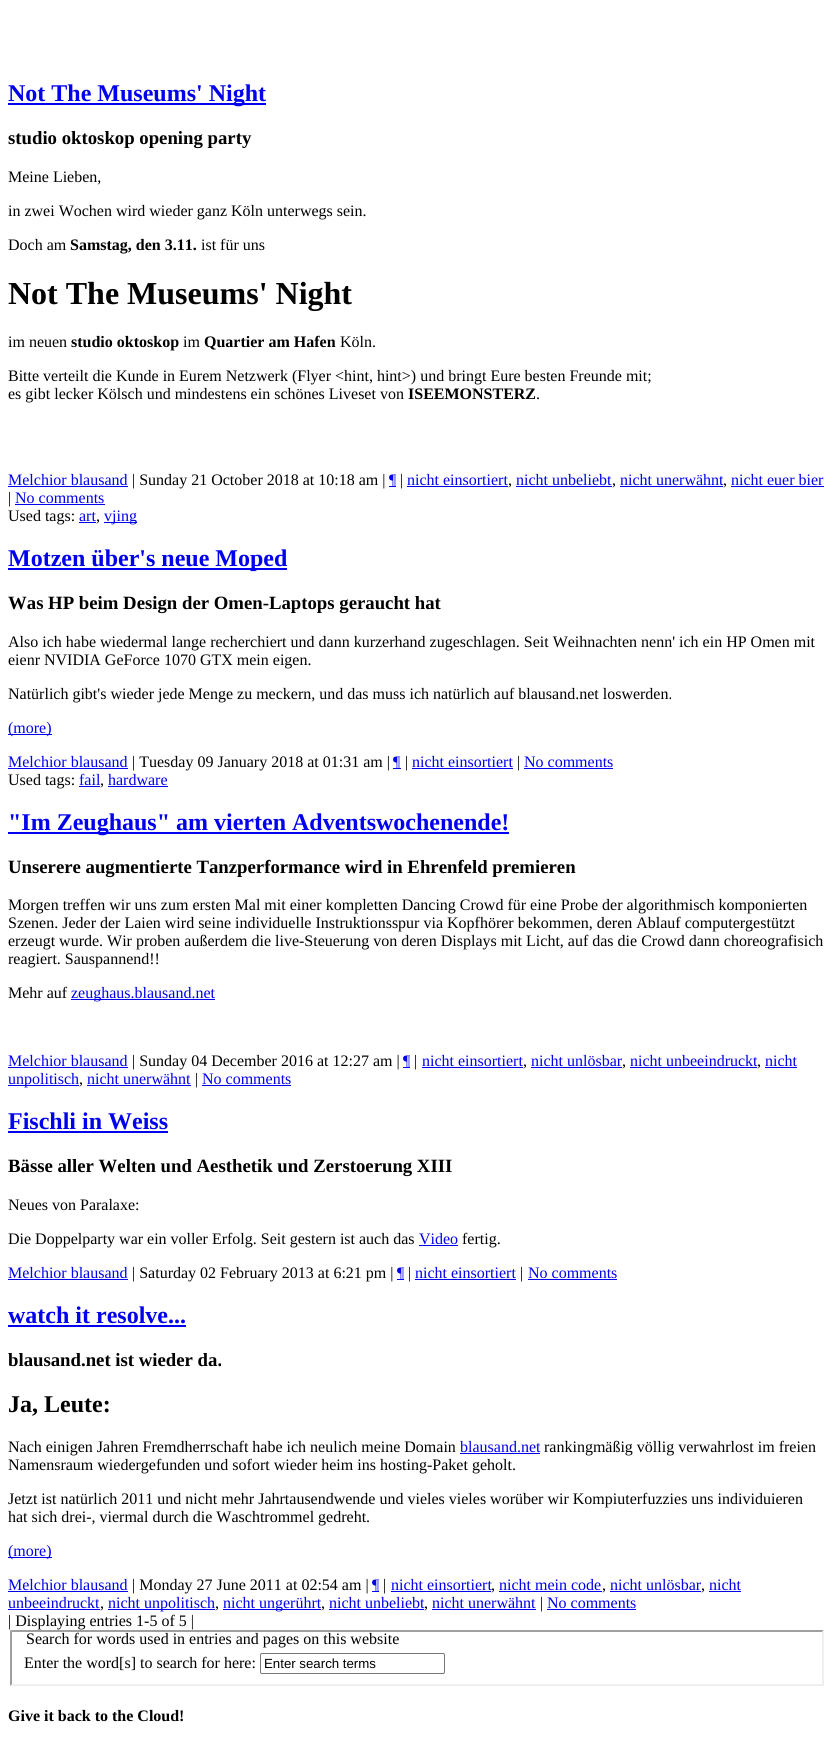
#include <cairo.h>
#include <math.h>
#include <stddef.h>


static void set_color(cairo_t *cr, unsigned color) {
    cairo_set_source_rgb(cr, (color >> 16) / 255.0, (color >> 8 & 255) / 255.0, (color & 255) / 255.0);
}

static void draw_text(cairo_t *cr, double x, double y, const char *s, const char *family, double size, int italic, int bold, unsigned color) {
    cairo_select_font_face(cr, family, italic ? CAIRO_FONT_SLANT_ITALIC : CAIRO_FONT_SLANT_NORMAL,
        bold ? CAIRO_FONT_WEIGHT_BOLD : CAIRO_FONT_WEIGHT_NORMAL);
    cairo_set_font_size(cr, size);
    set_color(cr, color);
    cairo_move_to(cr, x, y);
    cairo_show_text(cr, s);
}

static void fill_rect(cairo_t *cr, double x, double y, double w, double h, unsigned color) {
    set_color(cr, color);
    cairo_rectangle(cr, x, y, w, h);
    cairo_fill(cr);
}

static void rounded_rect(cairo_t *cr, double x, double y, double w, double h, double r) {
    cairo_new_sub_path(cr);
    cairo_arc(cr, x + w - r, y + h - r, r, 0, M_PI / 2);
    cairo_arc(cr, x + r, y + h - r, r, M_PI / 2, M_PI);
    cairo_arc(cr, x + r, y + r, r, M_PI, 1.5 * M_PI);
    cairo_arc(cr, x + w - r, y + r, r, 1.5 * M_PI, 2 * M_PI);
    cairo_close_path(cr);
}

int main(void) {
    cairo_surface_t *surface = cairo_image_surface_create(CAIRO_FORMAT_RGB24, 834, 1749);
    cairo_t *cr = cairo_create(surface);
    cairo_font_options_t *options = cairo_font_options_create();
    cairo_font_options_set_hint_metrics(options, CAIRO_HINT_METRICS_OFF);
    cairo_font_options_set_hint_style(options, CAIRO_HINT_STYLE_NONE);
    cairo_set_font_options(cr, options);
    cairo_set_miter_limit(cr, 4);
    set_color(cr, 0xFFFFFF);
    cairo_paint(cr);
    fill_rect(cr, 8, 103, 258, 2, 0x0000EE);
    draw_text(cr, 8, 101, "Not The Museums' Night", "Liberation Serif", 24, 0, 1, 0x0000EE);
    draw_text(cr, 8, 144, "studio oktoskop opening party", "Liberation Serif", 18.75, 0, 1, 0x000000);
    draw_text(cr, 8, 182, "Meine Lieben,", "Liberation Serif", 16, 0, 0, 0x000000);
    draw_text(cr, 8, 216, "in zwei Wochen wird wieder ganz Köln unterwegs sein.", "Liberation Serif", 16, 0, 0, 0x000000);
    draw_text(cr, 8, 250, "Doch am", "Liberation Serif", 16, 0, 0, 0x000000);
    draw_text(cr, 70, 250, "Samstag, den 3.11.", "Liberation Serif", 16, 0, 1, 0x000000);
    draw_text(cr, 201, 250, "ist für uns", "Liberation Serif", 16, 0, 0, 0x000000);
    draw_text(cr, 8, 304, "Not The Museums' Night", "Liberation Serif", 32, 0, 1, 0x000000);
    draw_text(cr, 8, 347, "im neuen", "Liberation Serif", 16, 0, 0, 0x000000);
    draw_text(cr, 71, 347, "studio oktoskop", "Liberation Serif", 16, 0, 1, 0x000000);
    draw_text(cr, 183, 347, "im", "Liberation Serif", 16, 0, 0, 0x000000);
    draw_text(cr, 204, 347, "Quartier am Hafen", "Liberation Serif", 16, 0, 1, 0x000000);
    draw_text(cr, 340, 347, "Köln.", "Liberation Serif", 16, 0, 0, 0x000000);
    draw_text(cr, 8, 381, "Bitte verteilt die Kunde in Eurem Netzwerk (Flyer <hint, hint>) und bringt Eure besten Freunde mit;", "Liberation Serif", 16, 0, 0, 0x000000);
    draw_text(cr, 8, 399, "es gibt lecker Kölsch und mindestens ein schönes Liveset von", "Liberation Serif", 16, 0, 0, 0x000000);
    draw_text(cr, 408, 399, "ISEEMONSTERZ", "Liberation Serif", 16, 0, 1, 0x000000);
    draw_text(cr, 536, 399, ".", "Liberation Serif", 16, 0, 0, 0x000000);
    draw_text(cr, 8, 485, "Melchior blausand", "Liberation Serif", 16, 0, 0, 0x0000EE);
    fill_rect(cr, 8, 486, 120, 1, 0x0000EE);
    draw_text(cr, 132, 485, "| Sunday 21 October 2018 at 10:18 am |", "Liberation Serif", 16, 0, 0, 0x000000);
    fill_rect(cr, 389, 486, 7, 1, 0x0000EE);
    draw_text(cr, 389, 485, "¶", "Liberation Serif", 16, 0, 0, 0x0000EE);
    draw_text(cr, 400, 485, "|", "Liberation Serif", 16, 0, 0, 0x000000);
    draw_text(cr, 407, 485, "nicht einsortiert", "Liberation Serif", 16, 0, 0, 0x0000EE);
    fill_rect(cr, 407, 486, 101, 1, 0x0000EE);
    draw_text(cr, 508, 485, ",", "Liberation Serif", 16, 0, 0, 0x000000);
    draw_text(cr, 516, 485, "nicht unbeliebt", "Liberation Serif", 16, 0, 0, 0x0000EE);
    fill_rect(cr, 516, 486, 96, 1, 0x0000EE);
    draw_text(cr, 612, 485, ",", "Liberation Serif", 16, 0, 0, 0x000000);
    draw_text(cr, 620, 485, "nicht unerwähnt", "Liberation Serif", 16, 0, 0, 0x0000EE);
    fill_rect(cr, 620, 486, 103, 1, 0x0000EE);
    draw_text(cr, 723, 485, ",", "Liberation Serif", 16, 0, 0, 0x000000);
    draw_text(cr, 731, 485, "nicht euer bier", "Liberation Serif", 16, 0, 0, 0x0000EE);
    fill_rect(cr, 731, 486, 93, 1, 0x0000EE);
    draw_text(cr, 8, 503, "|", "Liberation Serif", 16, 0, 0, 0x000000);
    draw_text(cr, 15, 503, "No comments", "Liberation Serif", 16, 0, 0, 0x0000EE);
    fill_rect(cr, 15, 504, 90, 1, 0x0000EE);
    draw_text(cr, 8, 521, "Used tags:", "Liberation Serif", 16, 0, 0, 0x000000);
    draw_text(cr, 79, 521, "art", "Liberation Serif", 16, 0, 0, 0x0000EE);
    fill_rect(cr, 79, 522, 17, 1, 0x0000EE);
    draw_text(cr, 96, 521, ",", "Liberation Serif", 16, 0, 0, 0x000000);
    fill_rect(cr, 104, 522, 33, 1, 0x0000EE);
    draw_text(cr, 104, 521, "vjing", "Liberation Serif", 16, 0, 0, 0x0000EE);
    fill_rect(cr, 8, 568, 279, 2, 0x0000EE);
    draw_text(cr, 8, 566, "Motzen über's neue Moped", "Liberation Serif", 24, 0, 1, 0x0000EE);
    draw_text(cr, 8, 609, "Was HP beim Design der Omen-Laptops geraucht hat", "Liberation Serif", 18.75, 0, 1, 0x000000);
    draw_text(cr, 8, 647, "Also ich habe wiedermal lange recherchiert und dann kurzerhand zugeschlagen. Seit Weihnachten nenn' ich ein HP Omen mit", "Liberation Serif", 16, 0, 0, 0x000000);
    draw_text(cr, 8, 665, "eienr NVIDIA GeForce 1070 GTX mein eigen.", "Liberation Serif", 16, 0, 0, 0x000000);
    draw_text(cr, 8, 699, "Natürlich gibt's wieder jede Menge zu meckern, und das muss ich natürlich auf blausand.net loswerden.", "Liberation Serif", 16, 0, 0, 0x000000);
    fill_rect(cr, 8, 734, 44, 1, 0x0000EE);
    draw_text(cr, 8, 733, "(more)", "Liberation Serif", 16, 0, 0, 0x0000EE);
    draw_text(cr, 8, 767, "Melchior blausand", "Liberation Serif", 16, 0, 0, 0x0000EE);
    fill_rect(cr, 8, 768, 120, 1, 0x0000EE);
    draw_text(cr, 132, 767, "| Tuesday 09 January 2018 at 01:31 am |", "Liberation Serif", 16, 0, 0, 0x000000);
    fill_rect(cr, 393, 768, 8, 1, 0x0000EE);
    draw_text(cr, 393, 767, "¶", "Liberation Serif", 16, 0, 0, 0x0000EE);
    draw_text(cr, 405, 767, "|", "Liberation Serif", 16, 0, 0, 0x000000);
    draw_text(cr, 412, 767, "nicht einsortiert", "Liberation Serif", 16, 0, 0, 0x0000EE);
    fill_rect(cr, 412, 768, 101, 1, 0x0000EE);
    draw_text(cr, 517, 767, "|", "Liberation Serif", 16, 0, 0, 0x000000);
    draw_text(cr, 524, 767, "No comments", "Liberation Serif", 16, 0, 0, 0x0000EE);
    fill_rect(cr, 524, 768, 89, 1, 0x0000EE);
    draw_text(cr, 8, 785, "Used tags:", "Liberation Serif", 16, 0, 0, 0x000000);
    draw_text(cr, 79, 785, "fail", "Liberation Serif", 16, 0, 0, 0x0000EE);
    fill_rect(cr, 79, 786, 21, 1, 0x0000EE);
    draw_text(cr, 100, 785, ",", "Liberation Serif", 16, 0, 0, 0x000000);
    draw_text(cr, 108, 785, "hardware", "Liberation Serif", 16, 0, 0, 0x0000EE);
    fill_rect(cr, 108, 786, 60, 1, 0x0000EE);
    fill_rect(cr, 8, 832, 501, 2, 0x0000EE);
    draw_text(cr, 8, 830, "\"Im Zeughaus\" am vierten Adventswochenende!", "Liberation Serif", 24, 0, 1, 0x0000EE);
    draw_text(cr, 8, 873, "Unserere augmentierte Tanzperformance wird in Ehrenfeld premieren", "Liberation Serif", 18.75, 0, 1, 0x000000);
    draw_text(cr, 8, 910, "Morgen treffen wir uns zum ersten Mal mit einer kompletten Dancing Crowd für eine Probe der algorithmisch komponierten", "Liberation Serif", 16, 0, 0, 0x000000);
    draw_text(cr, 8, 928, "Szenen. Jeder der Laien wird seine individuelle Instruktionsspur via Kopfhörer bekommen, deren Ablauf computergestützt", "Liberation Serif", 16, 0, 0, 0x000000);
    draw_text(cr, 8, 946, "erzeugt wurde. Wir proben außerdem die live-Steuerung von deren Displays mit Licht, auf das die Crowd dann choreografisich", "Liberation Serif", 16, 0, 0, 0x000000);
    draw_text(cr, 8, 964, "reagiert. Sauspannend!!", "Liberation Serif", 16, 0, 0, 0x000000);
    draw_text(cr, 8, 998, "Mehr auf", "Liberation Serif", 16, 0, 0, 0x000000);
    fill_rect(cr, 71, 999, 144, 1, 0x0000EE);
    draw_text(cr, 71, 998, "zeughaus.blausand.net", "Liberation Serif", 16, 0, 0, 0x0000EE);
    draw_text(cr, 8, 1066, "Melchior blausand", "Liberation Serif", 16, 0, 0, 0x0000EE);
    fill_rect(cr, 8, 1067, 120, 1, 0x0000EE);
    draw_text(cr, 132, 1066, "| Sunday 04 December 2016 at 12:27 am |", "Liberation Serif", 16, 0, 0, 0x000000);
    fill_rect(cr, 403, 1067, 7, 1, 0x0000EE);
    draw_text(cr, 403, 1066, "¶", "Liberation Serif", 16, 0, 0, 0x0000EE);
    draw_text(cr, 414, 1066, "|", "Liberation Serif", 16, 0, 0, 0x000000);
    draw_text(cr, 422, 1066, "nicht einsortiert", "Liberation Serif", 16, 0, 0, 0x0000EE);
    fill_rect(cr, 422, 1067, 101, 1, 0x0000EE);
    draw_text(cr, 523, 1066, ",", "Liberation Serif", 16, 0, 0, 0x000000);
    draw_text(cr, 531, 1066, "nicht unlösbar", "Liberation Serif", 16, 0, 0, 0x0000EE);
    fill_rect(cr, 531, 1067, 91, 1, 0x0000EE);
    draw_text(cr, 622, 1066, ",", "Liberation Serif", 16, 0, 0, 0x000000);
    draw_text(cr, 630, 1066, "nicht unbeeindruckt", "Liberation Serif", 16, 0, 0, 0x0000EE);
    fill_rect(cr, 630, 1067, 127, 1, 0x0000EE);
    draw_text(cr, 757, 1066, ",", "Liberation Serif", 16, 0, 0, 0x000000);
    draw_text(cr, 765, 1066, "nicht", "Liberation Serif", 16, 0, 0, 0x0000EE);
    fill_rect(cr, 765, 1067, 32, 1, 0x0000EE);
    fill_rect(cr, 8, 1085, 71, 1, 0x0000EE);
    draw_text(cr, 8, 1084, "unpolitisch", "Liberation Serif", 16, 0, 0, 0x0000EE);
    draw_text(cr, 79, 1084, ",", "Liberation Serif", 16, 0, 0, 0x000000);
    draw_text(cr, 87, 1084, "nicht unerwähnt", "Liberation Serif", 16, 0, 0, 0x0000EE);
    fill_rect(cr, 87, 1085, 104, 1, 0x0000EE);
    draw_text(cr, 195, 1084, "|", "Liberation Serif", 16, 0, 0, 0x000000);
    draw_text(cr, 202, 1084, "No comments", "Liberation Serif", 16, 0, 0, 0x0000EE);
    fill_rect(cr, 202, 1085, 89, 1, 0x0000EE);
    draw_text(cr, 8, 1129, "Fischli in Weiss", "Liberation Serif", 24, 0, 1, 0x0000EE);
    fill_rect(cr, 8, 1131, 160, 2, 0x0000EE);
    draw_text(cr, 8, 1172, "Bässe aller Welten und Aesthetik und Zerstoerung XIII", "Liberation Serif", 18.75, 0, 1, 0x000000);
    draw_text(cr, 8, 1210, "Neues von Paralaxe:", "Liberation Serif", 16, 0, 0, 0x000000);
    draw_text(cr, 8, 1244, "Die Doppelparty war ein voller Erfolg. Seit gestern ist auch das", "Liberation Serif", 16, 0, 0, 0x000000);
    draw_text(cr, 419, 1244, "Video", "Liberation Serif", 16, 0, 0, 0x0000EE);
    fill_rect(cr, 419, 1245, 39, 1, 0x0000EE);
    draw_text(cr, 462, 1244, "fertig.", "Liberation Serif", 16, 0, 0, 0x000000);
    draw_text(cr, 8, 1278, "Melchior blausand", "Liberation Serif", 16, 0, 0, 0x0000EE);
    fill_rect(cr, 8, 1279, 120, 1, 0x0000EE);
    draw_text(cr, 132, 1278, "| Saturday 02 February 2013 at 6:21 pm |", "Liberation Serif", 16, 0, 0, 0x000000);
    fill_rect(cr, 397, 1279, 7, 1, 0x0000EE);
    draw_text(cr, 397, 1278, "¶", "Liberation Serif", 16, 0, 0, 0x0000EE);
    draw_text(cr, 408, 1278, "|", "Liberation Serif", 16, 0, 0, 0x000000);
    draw_text(cr, 415, 1278, "nicht einsortiert", "Liberation Serif", 16, 0, 0, 0x0000EE);
    fill_rect(cr, 415, 1279, 101, 1, 0x0000EE);
    draw_text(cr, 520, 1278, "|", "Liberation Serif", 16, 0, 0, 0x000000);
    draw_text(cr, 528, 1278, "No comments", "Liberation Serif", 16, 0, 0, 0x0000EE);
    fill_rect(cr, 528, 1279, 89, 1, 0x0000EE);
    draw_text(cr, 8, 1323, "watch it resolve...", "Liberation Serif", 24, 0, 1, 0x0000EE);
    fill_rect(cr, 8, 1325, 178, 2, 0x0000EE);
    draw_text(cr, 8, 1366, "blausand.net ist wieder da.", "Liberation Serif", 18.75, 0, 1, 0x000000);
    draw_text(cr, 8, 1412, "Ja, Leute:", "Liberation Serif", 24, 0, 1, 0x000000);
    draw_text(cr, 8, 1452, "Nach einigen Jahren Fremdherrschaft habe ich neulich meine Domain", "Liberation Serif", 16, 0, 0, 0x000000);
    draw_text(cr, 460, 1452, "blausand.net", "Liberation Serif", 16, 0, 0, 0x0000EE);
    fill_rect(cr, 460, 1453, 80, 1, 0x0000EE);
    draw_text(cr, 544, 1452, "rankingmäßig völlig verwahrlost im freien", "Liberation Serif", 16, 0, 0, 0x000000);
    draw_text(cr, 8, 1470, "Namensraum wiedergefunden und sofort wieder heim ins hosting-Paket geholt.", "Liberation Serif", 16, 0, 0, 0x000000);
    draw_text(cr, 8, 1504, "Jetzt ist natürlich 2011 und nicht mehr Jahrtausendwende und vieles vieles worüber wir Kompiuterfuzzies uns individuieren", "Liberation Serif", 16, 0, 0, 0x000000);
    draw_text(cr, 8, 1522, "hat sich drei-, viermal durch die Waschtrommel gedreht.", "Liberation Serif", 16, 0, 0, 0x000000);
    fill_rect(cr, 8, 1557, 44, 1, 0x0000EE);
    draw_text(cr, 8, 1556, "(more)", "Liberation Serif", 16, 0, 0, 0x0000EE);
    draw_text(cr, 8, 1590, "Melchior blausand", "Liberation Serif", 16, 0, 0, 0x0000EE);
    fill_rect(cr, 8, 1591, 120, 1, 0x0000EE);
    draw_text(cr, 132, 1590, "| Monday 27 June 2011 at 02:54 am |", "Liberation Serif", 16, 0, 0, 0x000000);
    fill_rect(cr, 372, 1591, 7, 1, 0x0000EE);
    draw_text(cr, 372, 1590, "¶", "Liberation Serif", 16, 0, 0, 0x0000EE);
    draw_text(cr, 383, 1590, "|", "Liberation Serif", 16, 0, 0, 0x000000);
    draw_text(cr, 391, 1590, "nicht einsortiert", "Liberation Serif", 16, 0, 0, 0x0000EE);
    fill_rect(cr, 391, 1591, 100, 1, 0x0000EE);
    draw_text(cr, 491, 1590, ",", "Liberation Serif", 16, 0, 0, 0x000000);
    draw_text(cr, 499, 1590, "nicht mein code", "Liberation Serif", 16, 0, 0, 0x0000EE);
    fill_rect(cr, 499, 1591, 103, 1, 0x0000EE);
    draw_text(cr, 602, 1590, ",", "Liberation Serif", 16, 0, 0, 0x000000);
    draw_text(cr, 610, 1590, "nicht unlösbar", "Liberation Serif", 16, 0, 0, 0x0000EE);
    fill_rect(cr, 610, 1591, 91, 1, 0x0000EE);
    draw_text(cr, 701, 1590, ",", "Liberation Serif", 16, 0, 0, 0x000000);
    draw_text(cr, 709, 1590, "nicht", "Liberation Serif", 16, 0, 0, 0x0000EE);
    fill_rect(cr, 709, 1591, 32, 1, 0x0000EE);
    draw_text(cr, 8, 1608, "unbeeindruckt", "Liberation Serif", 16, 0, 0, 0x0000EE);
    fill_rect(cr, 8, 1609, 92, 1, 0x0000EE);
    draw_text(cr, 100, 1608, ",", "Liberation Serif", 16, 0, 0, 0x000000);
    fill_rect(cr, 108, 1609, 107, 1, 0x0000EE);
    draw_text(cr, 108, 1608, "nicht unpolitisch", "Liberation Serif", 16, 0, 0, 0x0000EE);
    draw_text(cr, 215, 1608, ",", "Liberation Serif", 16, 0, 0, 0x000000);
    fill_rect(cr, 223, 1609, 98, 1, 0x0000EE);
    draw_text(cr, 223, 1608, "nicht ungerührt", "Liberation Serif", 16, 0, 0, 0x0000EE);
    draw_text(cr, 321, 1608, ",", "Liberation Serif", 16, 0, 0, 0x000000);
    draw_text(cr, 329, 1608, "nicht unbeliebt", "Liberation Serif", 16, 0, 0, 0x0000EE);
    fill_rect(cr, 329, 1609, 95, 1, 0x0000EE);
    draw_text(cr, 424, 1608, ",", "Liberation Serif", 16, 0, 0, 0x000000);
    draw_text(cr, 432, 1608, "nicht unerwähnt", "Liberation Serif", 16, 0, 0, 0x0000EE);
    fill_rect(cr, 432, 1609, 104, 1, 0x0000EE);
    draw_text(cr, 540, 1608, "|", "Liberation Serif", 16, 0, 0, 0x000000);
    draw_text(cr, 547, 1608, "No comments", "Liberation Serif", 16, 0, 0, 0x0000EE);
    fill_rect(cr, 547, 1609, 89, 1, 0x0000EE);
    draw_text(cr, 8, 1626, "| Displaying entries 1-5 of 5 |", "Liberation Serif", 16, 0, 0, 0x000000);
    set_color(cr, 0x9F9F9F);
    cairo_new_path(cr);
    cairo_move_to(cr, 10, 1630);
    cairo_line_to(cr, 824, 1630);
    cairo_line_to(cr, 822, 1632);
    cairo_line_to(cr, 12, 1632);
    cairo_close_path(cr);
    cairo_fill(cr);
    set_color(cr, 0xEFEFEF);
    cairo_new_path(cr);
    cairo_move_to(cr, 824, 1630);
    cairo_line_to(cr, 824, 1686);
    cairo_line_to(cr, 822, 1684);
    cairo_line_to(cr, 822, 1632);
    cairo_close_path(cr);
    cairo_fill(cr);
    cairo_new_path(cr);
    cairo_move_to(cr, 824, 1686);
    cairo_line_to(cr, 10, 1686);
    cairo_line_to(cr, 12, 1684);
    cairo_line_to(cr, 822, 1684);
    cairo_close_path(cr);
    cairo_fill(cr);
    set_color(cr, 0x9F9F9F);
    cairo_new_path(cr);
    cairo_move_to(cr, 10, 1686);
    cairo_line_to(cr, 10, 1630);
    cairo_line_to(cr, 12, 1632);
    cairo_line_to(cr, 12, 1684);
    cairo_close_path(cr);
    cairo_fill(cr);
    draw_text(cr, 26, 1644, "Search for words used in entries and pages on this website", "Liberation Serif", 16, 0, 0, 0x000000);
    draw_text(cr, 24, 1668, "Enter the word[s] to search for here:", "Liberation Serif", 16, 0, 0, 0x000000);
    rounded_rect(cr, 260.5, 1653.5, 184, 20, 1.5);
    set_color(cr, 0x767676);
    cairo_set_line_width(cr, 1);
    cairo_stroke(cr);
    draw_text(cr, 264, 1668, "Enter search terms", "Liberation Sans", 13.25, 0, 0, 0x000000);
    draw_text(cr, 8, 1721, "Give it back to the Cloud!", "Liberation Serif", 16, 0, 1, 0x000000);
    cairo_surface_write_to_png(surface, "output.png");
    cairo_font_options_destroy(options);
    cairo_destroy(cr);
    cairo_surface_destroy(surface);
    return 0;
}
